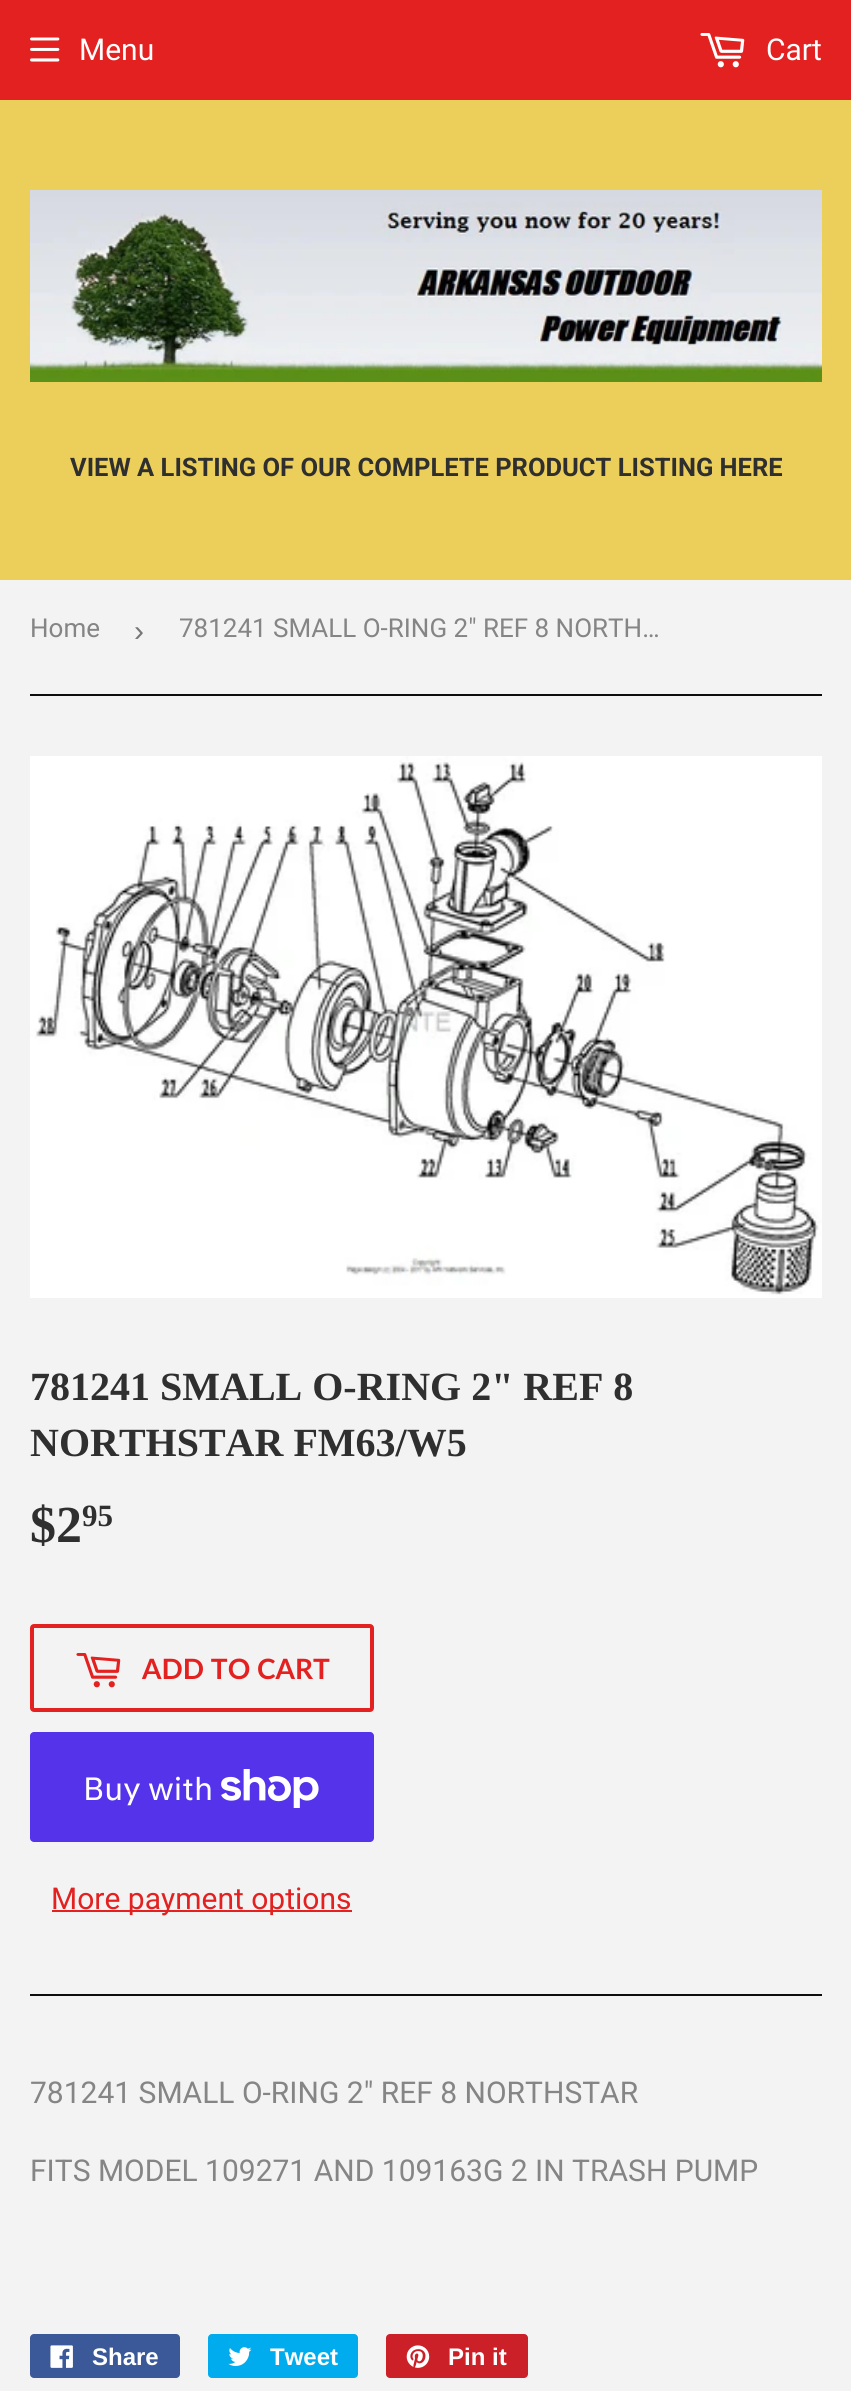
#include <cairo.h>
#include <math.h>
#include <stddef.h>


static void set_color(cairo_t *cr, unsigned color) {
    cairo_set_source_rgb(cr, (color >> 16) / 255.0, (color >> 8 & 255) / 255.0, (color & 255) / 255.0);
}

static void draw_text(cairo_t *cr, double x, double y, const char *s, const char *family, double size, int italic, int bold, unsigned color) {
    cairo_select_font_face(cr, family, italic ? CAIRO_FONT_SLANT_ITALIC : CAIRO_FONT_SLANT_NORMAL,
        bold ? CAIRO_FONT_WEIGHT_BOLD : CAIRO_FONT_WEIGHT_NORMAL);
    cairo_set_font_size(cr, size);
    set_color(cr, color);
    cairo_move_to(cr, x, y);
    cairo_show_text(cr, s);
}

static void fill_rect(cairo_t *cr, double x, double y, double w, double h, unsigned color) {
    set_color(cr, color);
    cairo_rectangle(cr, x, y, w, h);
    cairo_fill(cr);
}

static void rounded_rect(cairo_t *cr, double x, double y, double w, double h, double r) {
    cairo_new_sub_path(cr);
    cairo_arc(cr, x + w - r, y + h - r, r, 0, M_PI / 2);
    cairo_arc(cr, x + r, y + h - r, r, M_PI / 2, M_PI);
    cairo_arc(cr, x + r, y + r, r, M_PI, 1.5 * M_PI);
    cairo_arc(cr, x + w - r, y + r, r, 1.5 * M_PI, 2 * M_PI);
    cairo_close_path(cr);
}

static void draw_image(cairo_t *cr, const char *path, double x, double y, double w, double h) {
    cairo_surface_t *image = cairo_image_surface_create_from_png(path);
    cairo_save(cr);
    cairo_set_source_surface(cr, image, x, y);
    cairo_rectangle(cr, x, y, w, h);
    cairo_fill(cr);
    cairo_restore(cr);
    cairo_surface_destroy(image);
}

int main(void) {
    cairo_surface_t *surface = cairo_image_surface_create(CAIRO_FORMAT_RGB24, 851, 2391);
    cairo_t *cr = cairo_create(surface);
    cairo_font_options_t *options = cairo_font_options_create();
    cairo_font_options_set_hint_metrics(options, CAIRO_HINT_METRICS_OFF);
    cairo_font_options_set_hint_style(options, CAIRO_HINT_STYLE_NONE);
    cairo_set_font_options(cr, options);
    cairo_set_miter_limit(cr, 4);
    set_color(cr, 0xF3F3F3);
    cairo_paint(cr);
    fill_rect(cr, 0, 0, 851, 100, 0xE22120);
    draw_image(cr, "assets/img1.png", 30, 37, 30, 25);
    draw_text(cr, 79, 60, "Menu", "Roboto", 30, 0, 0, 0xFFFFFF);
    draw_image(cr, "assets/img2.png", 700, 33, 45, 35);
    draw_text(cr, 766, 60, "Cart", "Roboto", 30, 0, 0, 0xFFFFFF);
    fill_rect(cr, 0, 100, 851, 480, 0xECCF5A);
    draw_image(cr, "assets/img3.png", 30, 190, 792, 192);
    draw_text(cr, 70, 476, "VIEW A LISTING OF OUR COMPLETE PRODUCT LISTING HERE", "Roboto", 25.5, 0, 1, 0x2F2F2F);
    fill_rect(cr, 30, 694, 792, 2, 0x0E0D0D);
    draw_text(cr, 30, 637, "Home", "Roboto", 26, 0, 0, 0x858585);
    draw_text(cr, 134, 641, "›", "Liberation Sans", 30, 0, 0, 0x767676);
    draw_text(cr, 179, 637, "781241 SMALL O-RING 2\" REF 8 NORTH…", "Roboto", 26, 0, 0, 0x858585);
    draw_image(cr, "assets/img4.png", 30, 756, 792, 542);
    draw_text(cr, 30, 1400, "781241 SMALL O-RING 2\" REF 8", "Liberation Serif", 40, 0, 1, 0x2F2F2F);
    draw_text(cr, 30, 1456, "NORTHSTAR FM63/W5", "Liberation Serif", 40, 0, 1, 0x2F2F2F);
    draw_text(cr, 30, 1542, "$2", "Liberation Serif", 52, 0, 1, 0x2F2F2F);
    draw_text(cr, 82, 1526, "95", "Liberation Serif", 31, 0, 1, 0x2F2F2F);
    rounded_rect(cr, 32, 1626, 340, 84, 2);
    set_color(cr, 0xE22120);
    cairo_set_line_width(cr, 4);
    cairo_stroke(cr);
    draw_image(cr, "assets/img5.png", 76, 1653, 45, 35);
    draw_text(cr, 142, 1679, "ADD TO CART", "Lato", 28, 0, 1, 0xE22120);
    set_color(cr, 0x5433EB);
    rounded_rect(cr, 30, 1732, 344, 110, 4);
    cairo_fill(cr);
    draw_text(cr, 83, 1800, "Buy with", "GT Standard", 32, 0, 0, 0xFFFFFF);
    draw_image(cr, "assets/img6.png", 221, 1769, 98, 39);
    fill_rect(cr, 52, 1910, 300, 2, 0xE22120);
    draw_text(cr, 51, 1909, "More payment options", "Roboto", 30, 0, 0, 0xE22120);
    fill_rect(cr, 30, 1994, 792, 2, 0x0E0D0D);
    draw_text(cr, 30, 2103, "781241 SMALL O-RING 2\" REF 8 NORTHSTAR", "Roboto", 30, 0, 0, 0x858585);
    draw_text(cr, 30, 2181, "FITS MODEL 109271 AND 109163G 2 IN TRASH PUMP", "Roboto", 30, 0, 0, 0x858585);
    set_color(cr, 0x3B5998);
    rounded_rect(cr, 30, 2334, 150, 44, 4);
    cairo_fill(cr);
    draw_image(cr, "assets/img7.png", 50, 2345, 23, 23);
    draw_text(cr, 92, 2365, "Share", "Liberation Sans", 24, 0, 1, 0xFFFFFF);
    set_color(cr, 0x00ACED);
    rounded_rect(cr, 208, 2334, 150, 44, 4);
    cairo_fill(cr);
    draw_image(cr, "assets/img8.png", 228, 2347, 24, 19);
    draw_text(cr, 270, 2365, "Tweet", "Liberation Sans", 24, 0, 1, 0xFFFFFF);
    set_color(cr, 0xCB2027);
    rounded_rect(cr, 386, 2334, 142, 44, 4);
    cairo_fill(cr);
    draw_image(cr, "assets/img9.png", 406, 2345, 24, 23);
    draw_text(cr, 448, 2365, "Pin it", "Liberation Sans", 24, 0, 1, 0xFFFFFF);
    cairo_surface_write_to_png(surface, "output.png");
    cairo_font_options_destroy(options);
    cairo_destroy(cr);
    cairo_surface_destroy(surface);
    return 0;
}
